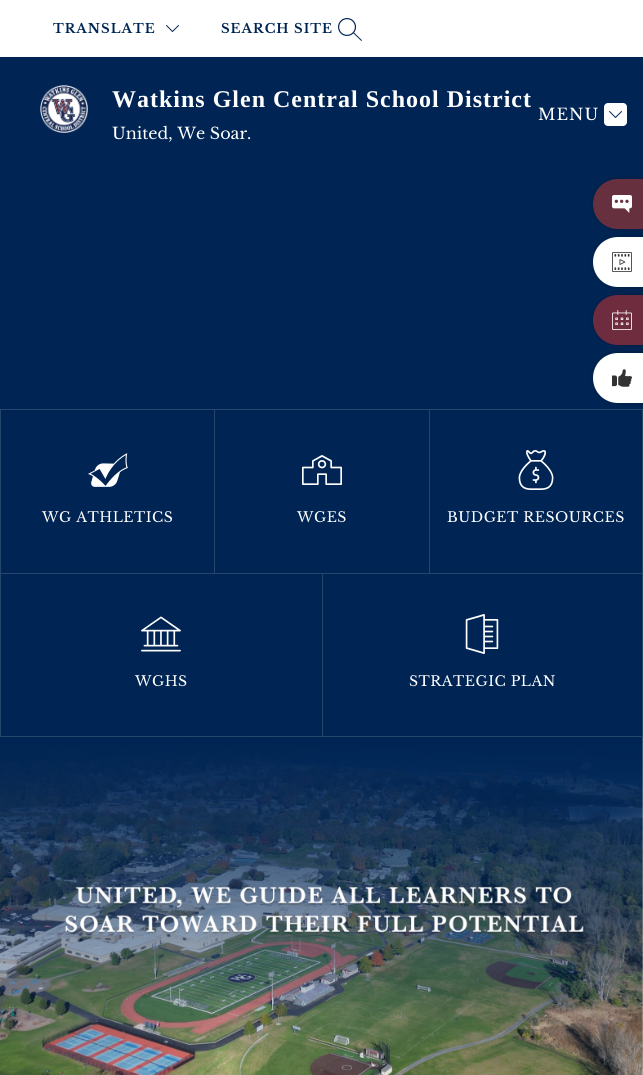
#include <cairo.h>
#include <math.h>
#include <stddef.h>


static void set_color(cairo_t *cr, unsigned color) {
    cairo_set_source_rgb(cr, (color >> 16) / 255.0, (color >> 8 & 255) / 255.0, (color & 255) / 255.0);
}

static void draw_text(cairo_t *cr, double x, double y, const char *s, const char *family, double size, int italic, int bold, unsigned color) {
    cairo_select_font_face(cr, family, italic ? CAIRO_FONT_SLANT_ITALIC : CAIRO_FONT_SLANT_NORMAL,
        bold ? CAIRO_FONT_WEIGHT_BOLD : CAIRO_FONT_WEIGHT_NORMAL);
    cairo_set_font_size(cr, size);
    set_color(cr, color);
    cairo_move_to(cr, x, y);
    cairo_show_text(cr, s);
}

static void draw_spaced(cairo_t *cr, double x, double y, const char *s, double letter, double word) {
    cairo_move_to(cr, x, y);
    while (*s) {
        char ch[5] = {0};
        int n = 0;
        do ch[n++] = *s++; while ((*s & 0xC0) == 0x80);
        cairo_show_text(cr, ch);
        cairo_rel_move_to(cr, letter + word * (*ch == ' '), 0);
    }
}

static void fill_rect(cairo_t *cr, double x, double y, double w, double h, unsigned color) {
    set_color(cr, color);
    cairo_rectangle(cr, x, y, w, h);
    cairo_fill(cr);
}

static void rounded_rect(cairo_t *cr, double x, double y, double w, double h, double r) {
    cairo_new_sub_path(cr);
    cairo_arc(cr, x + w - r, y + h - r, r, 0, M_PI / 2);
    cairo_arc(cr, x + r, y + h - r, r, M_PI / 2, M_PI);
    cairo_arc(cr, x + r, y + r, r, M_PI, 1.5 * M_PI);
    cairo_arc(cr, x + w - r, y + r, r, 1.5 * M_PI, 2 * M_PI);
    cairo_close_path(cr);
}

static void draw_shadow(cairo_t *cr, double x, double y, double w, double h, double r, double blur, double alpha) {
    cairo_push_group_with_content(cr, CAIRO_CONTENT_ALPHA);
    cairo_set_operator(cr, CAIRO_OPERATOR_SOURCE);
    for (int i = 15; i >= -15 && fmin(w, h) + blur * i / 3 > 0; i -= 2) {
        double e = blur * i / 6;
        cairo_set_source_rgba(cr, 0, 0, 0, alpha * erfc((i - 1) / 8.5) / 2);
        rounded_rect(cr, x - e, y - e, w + 2 * e, h + 2 * e, fmax(0, fmin(r + e + blur * .6, fmin(w, h) / 2 + e)));
        cairo_fill(cr);
    }
    cairo_pattern_t *soft = cairo_pop_group(cr);
    cairo_mask(cr, soft);
    cairo_pattern_destroy(soft);
}

static void draw_image(cairo_t *cr, const char *path, double x, double y, double w, double h) {
    cairo_surface_t *image = cairo_image_surface_create_from_png(path);
    cairo_save(cr);
    cairo_set_source_surface(cr, image, x, y);
    cairo_rectangle(cr, x, y, w, h);
    cairo_fill(cr);
    cairo_restore(cr);
    cairo_surface_destroy(image);
}

int main(void) {
    cairo_surface_t *surface = cairo_image_surface_create(CAIRO_FORMAT_RGB24, 643, 1075);
    cairo_t *cr = cairo_create(surface);
    cairo_font_options_t *options = cairo_font_options_create();
    cairo_font_options_set_hint_metrics(options, CAIRO_HINT_METRICS_OFF);
    cairo_font_options_set_hint_style(options, CAIRO_HINT_STYLE_NONE);
    cairo_set_font_options(cr, options);
    cairo_set_miter_limit(cr, 4);
    set_color(cr, 0xFFFFFF);
    cairo_paint(cr);
    cairo_select_font_face(cr, "Libre Baskerville", CAIRO_FONT_SLANT_NORMAL, CAIRO_FONT_WEIGHT_BOLD);
    cairo_set_font_size(cr, 13);
    set_color(cr, 0x002554);
    draw_spaced(cr, 53, 33, "TRANSLATE", 1, 0);
    draw_image(cr, "assets/img1.png", 166, 25, 13, 7);
    draw_spaced(cr, 221, 33, "SEARCH SITE", 1, 0);
    draw_image(cr, "assets/img2.png", 338, 18, 24, 23);
    fill_rect(cr, 0, 57, 643, 352, 0x002554);
    draw_image(cr, "assets/img3.png", 40, 85, 48, 48);
    cairo_select_font_face(cr, "Liberation Serif", CAIRO_FONT_SLANT_NORMAL, CAIRO_FONT_WEIGHT_BOLD);
    cairo_set_font_size(cr, 24);
    set_color(cr, 0xFFFFFF);
    draw_spaced(cr, 112, 107, "Watkins Glen Central School District", 1, 0);
    draw_text(cr, 112, 139, "United, We Soar.", "Libre Baskerville", 16, 0, 0, 0xFFFFFF);
    draw_spaced(cr, 538, 120, "MENU", 1, 0);
    draw_image(cr, "assets/img4.png", 604, 103, 23, 23);
    set_color(cr, 0x000000);
    draw_shadow(cr, 592, 178, 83, 52, 26, 2, 0.2);
    set_color(cr, 0x67303F);
    cairo_new_path(cr);
    cairo_move_to(cr, 618, 179);
    cairo_line_to(cr, 643, 179);
    cairo_line_to(cr, 643, 229);
    cairo_line_to(cr, 618, 229);
    cairo_curve_to(cr, 604, 229, 593, 218, 593, 204);
    cairo_curve_to(cr, 593, 190, 604, 179, 618, 179);
    cairo_close_path(cr);
    cairo_fill(cr);
    draw_image(cr, "assets/img5.png", 612, 195, 20, 18);
    set_color(cr, 0x000000);
    draw_shadow(cr, 592, 236, 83, 52, 26, 2, 0.2);
    set_color(cr, 0xFFFFFF);
    cairo_new_path(cr);
    cairo_move_to(cr, 618, 237);
    cairo_line_to(cr, 643, 237);
    cairo_line_to(cr, 643, 287);
    cairo_line_to(cr, 618, 287);
    cairo_curve_to(cr, 604, 287, 593, 276, 593, 262);
    cairo_curve_to(cr, 593, 248, 604, 237, 618, 237);
    cairo_close_path(cr);
    cairo_fill(cr);
    draw_image(cr, "assets/img6.png", 612, 252, 20, 20);
    set_color(cr, 0x000000);
    draw_shadow(cr, 592, 294, 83, 52, 26, 2, 0.2);
    set_color(cr, 0x6F2C3F);
    cairo_new_path(cr);
    cairo_move_to(cr, 618, 295);
    cairo_line_to(cr, 643, 295);
    cairo_line_to(cr, 643, 345);
    cairo_line_to(cr, 618, 345);
    cairo_curve_to(cr, 604, 345, 593, 334, 593, 320);
    cairo_curve_to(cr, 593, 306, 604, 295, 618, 295);
    cairo_close_path(cr);
    cairo_fill(cr);
    draw_image(cr, "assets/img7.png", 612, 310, 20, 20);
    fill_rect(cr, 0, 409, 643, 164, 0x002554);
    set_color(cr, 0x26466E);
    cairo_new_path(cr);
    cairo_move_to(cr, 429, 409);
    cairo_line_to(cr, 643, 409);
    cairo_line_to(cr, 642, 410);
    cairo_line_to(cr, 430, 410);
    cairo_close_path(cr);
    cairo_fill(cr);
    cairo_set_source_rgba(cr, 1, 1, 1, 0.15);
    cairo_new_path(cr);
    cairo_move_to(cr, 643, 409);
    cairo_line_to(cr, 643, 573);
    cairo_line_to(cr, 642, 573);
    cairo_line_to(cr, 642, 410);
    cairo_close_path(cr);
    cairo_fill(cr);
    set_color(cr, 0x000000);
    draw_shadow(cr, 592, 352, 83, 52, 26, 2, 0.2);
    set_color(cr, 0xFFFFFF);
    cairo_new_path(cr);
    cairo_move_to(cr, 618, 353);
    cairo_line_to(cr, 643, 353);
    cairo_line_to(cr, 643, 403);
    cairo_line_to(cr, 618, 403);
    cairo_curve_to(cr, 604, 403, 593, 392, 593, 378);
    cairo_curve_to(cr, 593, 364, 604, 353, 618, 353);
    cairo_close_path(cr);
    cairo_fill(cr);
    draw_image(cr, "assets/img8.png", 612, 369, 20, 18);
    set_color(cr, 0x26466E);
    cairo_new_path(cr);
    cairo_move_to(cr, 0, 409);
    cairo_line_to(cr, 214, 409);
    cairo_line_to(cr, 214, 410);
    cairo_line_to(cr, 1, 410);
    cairo_close_path(cr);
    cairo_fill(cr);
    cairo_set_source_rgba(cr, 1, 1, 1, 0.15);
    cairo_new_path(cr);
    cairo_move_to(cr, 0, 573);
    cairo_line_to(cr, 0, 409);
    cairo_line_to(cr, 1, 410);
    cairo_line_to(cr, 1, 573);
    cairo_close_path(cr);
    cairo_fill(cr);
    draw_image(cr, "assets/img9.png", 88, 453, 40, 34);
    cairo_set_font_size(cr, 14);
    set_color(cr, 0xFFFFFF);
    draw_spaced(cr, 42, 522, "WG ATHLETICS", 0.5, 0);
    set_color(cr, 0x26466E);
    cairo_new_path(cr);
    cairo_move_to(cr, 214, 409);
    cairo_line_to(cr, 429, 409);
    cairo_line_to(cr, 429, 410);
    cairo_line_to(cr, 215, 410);
    cairo_close_path(cr);
    cairo_fill(cr);
    cairo_set_source_rgba(cr, 1, 1, 1, 0.15);
    cairo_new_path(cr);
    cairo_move_to(cr, 214, 573);
    cairo_line_to(cr, 214, 409);
    cairo_line_to(cr, 215, 410);
    cairo_line_to(cr, 215, 573);
    cairo_close_path(cr);
    cairo_fill(cr);
    draw_image(cr, "assets/img10.png", 302, 455, 40, 30);
    set_color(cr, 0xFFFFFF);
    draw_spaced(cr, 297, 522, "WGES", 0.5, 0);
    cairo_set_source_rgba(cr, 1, 1, 1, 0.15);
    cairo_new_path(cr);
    cairo_move_to(cr, 429, 573);
    cairo_line_to(cr, 429, 409);
    cairo_line_to(cr, 430, 410);
    cairo_line_to(cr, 430, 573);
    cairo_close_path(cr);
    cairo_fill(cr);
    draw_image(cr, "assets/img11.png", 518, 450, 36, 40);
    set_color(cr, 0xFFFFFF);
    draw_spaced(cr, 447, 522, "BUDGET RESOURCES", 0.5, 0);
    fill_rect(cr, 0, 573, 322, 164, 0x002554);
    set_color(cr, 0x26466E);
    cairo_new_path(cr);
    cairo_move_to(cr, 0, 573);
    cairo_line_to(cr, 322, 573);
    cairo_line_to(cr, 322, 574);
    cairo_line_to(cr, 1, 574);
    cairo_close_path(cr);
    cairo_fill(cr);
    cairo_new_path(cr);
    cairo_move_to(cr, 322, 737);
    cairo_line_to(cr, 0, 737);
    cairo_line_to(cr, 1, 736);
    cairo_line_to(cr, 322, 736);
    cairo_close_path(cr);
    cairo_fill(cr);
    cairo_set_source_rgba(cr, 1, 1, 1, 0.15);
    cairo_new_path(cr);
    cairo_move_to(cr, 0, 737);
    cairo_line_to(cr, 0, 573);
    cairo_line_to(cr, 1, 574);
    cairo_line_to(cr, 1, 736);
    cairo_close_path(cr);
    cairo_fill(cr);
    draw_image(cr, "assets/img12.png", 141, 616, 40, 36);
    set_color(cr, 0xFFFFFF);
    draw_spaced(cr, 135, 686, "WGHS", 0.5, 0);
    set_color(cr, 0x002554);
    cairo_rectangle(cr, 322.5, 573.5, 320, 163);
    cairo_fill_preserve(cr);
    set_color(cr, 0x26466E);
    cairo_set_line_width(cr, 1);
    cairo_stroke(cr);
    draw_image(cr, "assets/img13.png", 465, 614, 34, 40);
    set_color(cr, 0xFFFFFF);
    draw_spaced(cr, 409, 686, "STRATEGIC PLAN", 0.5, 0);
    draw_image(cr, "assets/img14.png", 0, 737, 643, 338);
    cairo_surface_write_to_png(surface, "output.png");
    cairo_font_options_destroy(options);
    cairo_destroy(cr);
    cairo_surface_destroy(surface);
    return 0;
}
